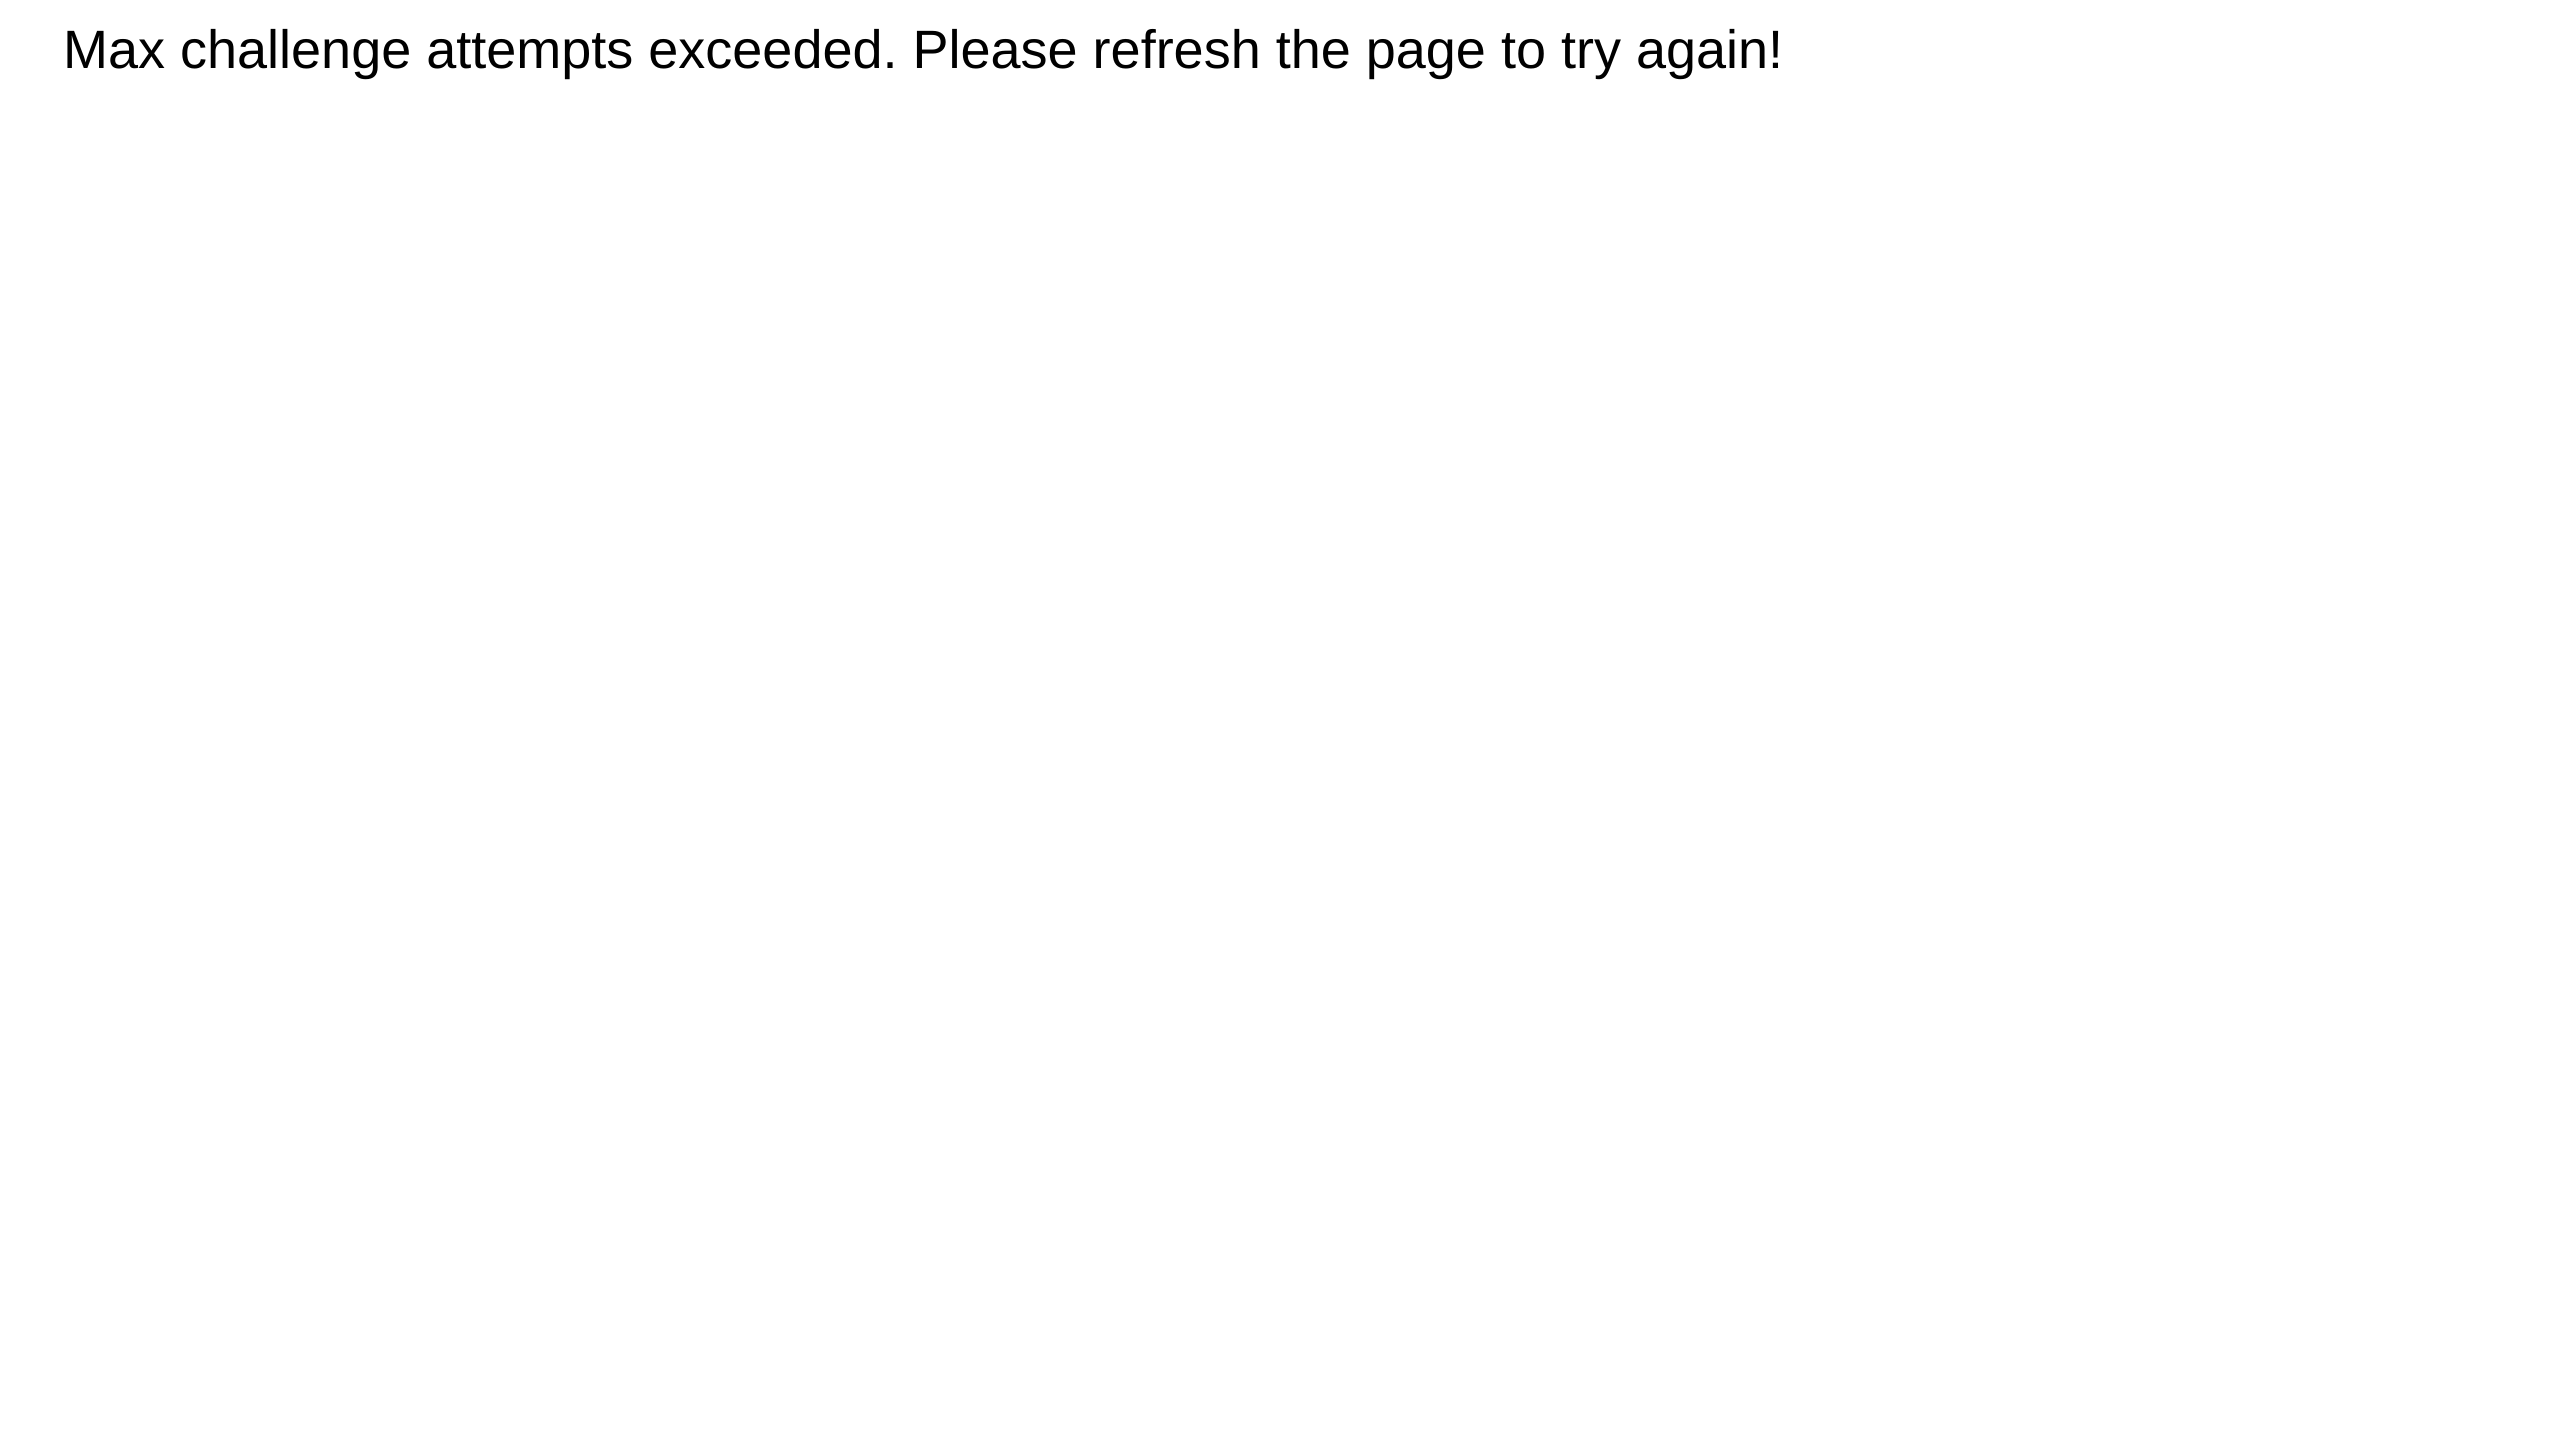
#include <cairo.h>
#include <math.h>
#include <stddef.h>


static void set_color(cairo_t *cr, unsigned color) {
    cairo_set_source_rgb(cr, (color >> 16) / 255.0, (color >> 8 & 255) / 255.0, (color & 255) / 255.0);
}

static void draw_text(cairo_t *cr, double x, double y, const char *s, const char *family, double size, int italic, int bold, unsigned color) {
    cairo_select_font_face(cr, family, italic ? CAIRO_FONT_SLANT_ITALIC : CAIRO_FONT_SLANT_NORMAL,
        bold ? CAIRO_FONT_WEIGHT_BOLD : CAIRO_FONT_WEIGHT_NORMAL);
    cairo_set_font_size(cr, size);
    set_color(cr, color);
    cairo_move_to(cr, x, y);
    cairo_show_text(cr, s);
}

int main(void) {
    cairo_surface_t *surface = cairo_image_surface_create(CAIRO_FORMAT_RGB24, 2575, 1456);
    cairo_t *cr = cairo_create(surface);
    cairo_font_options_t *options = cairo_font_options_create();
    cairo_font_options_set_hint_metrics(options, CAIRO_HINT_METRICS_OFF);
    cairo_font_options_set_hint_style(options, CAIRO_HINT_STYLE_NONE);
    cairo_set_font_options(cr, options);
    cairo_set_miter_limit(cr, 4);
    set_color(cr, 0xFFFFFF);
    cairo_paint(cr);
    draw_text(cr, 63, 68, "Max challenge attempts exceeded. Please refresh the page to try again!", "Liberation Sans", 54, 0, 0, 0x000000);
    cairo_surface_write_to_png(surface, "output.png");
    cairo_font_options_destroy(options);
    cairo_destroy(cr);
    cairo_surface_destroy(surface);
    return 0;
}
